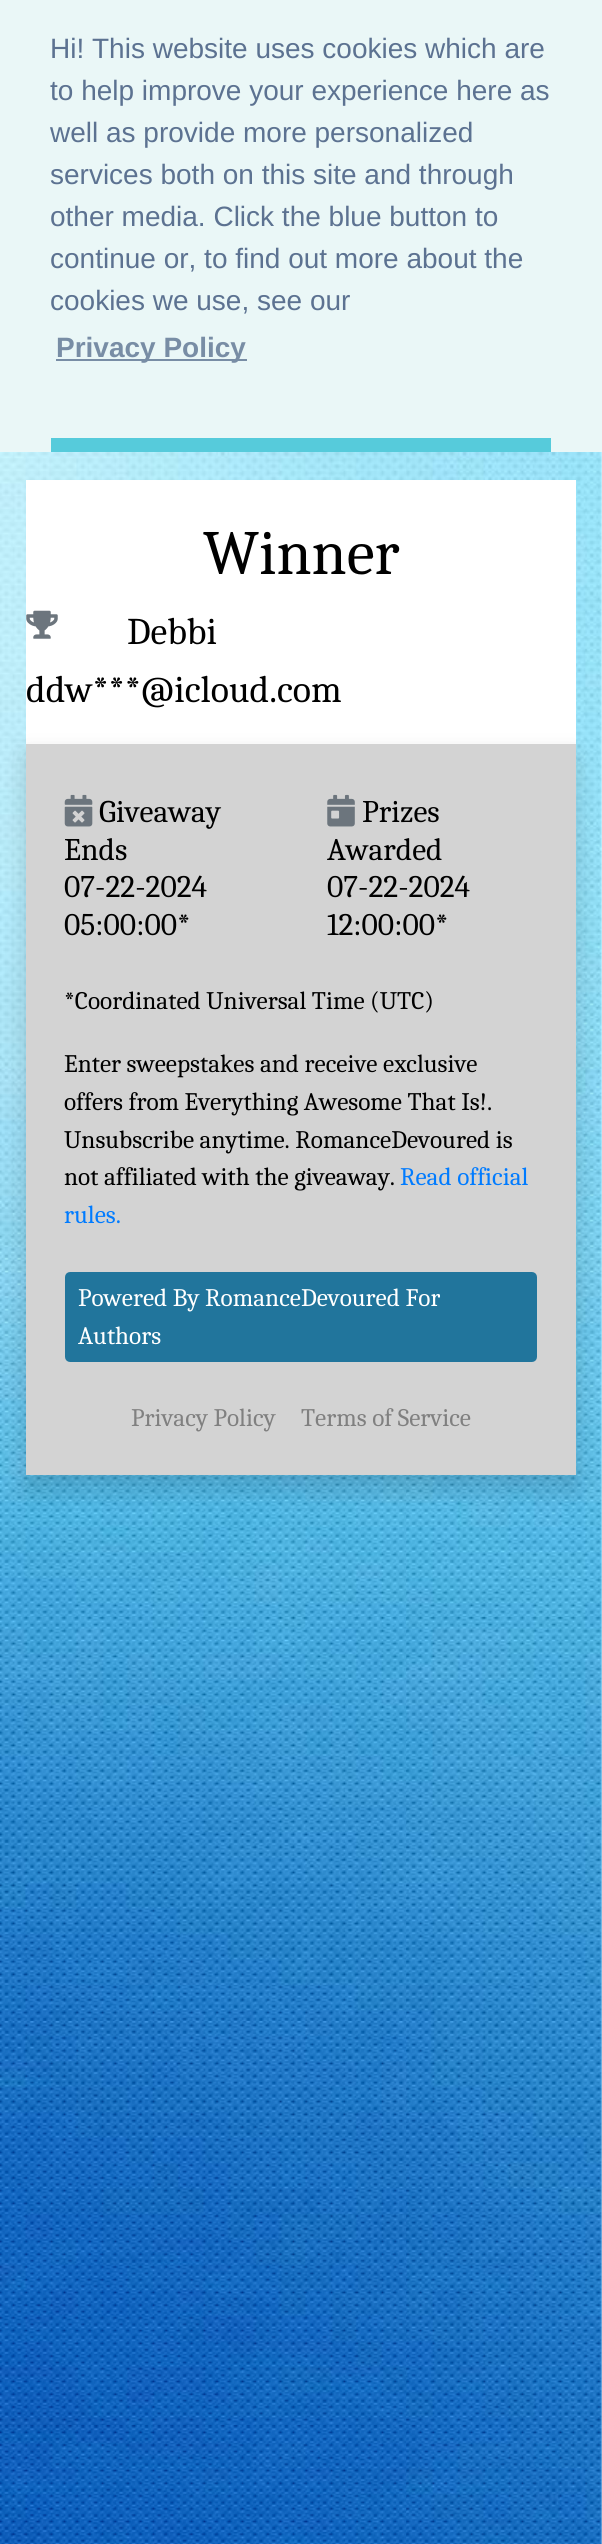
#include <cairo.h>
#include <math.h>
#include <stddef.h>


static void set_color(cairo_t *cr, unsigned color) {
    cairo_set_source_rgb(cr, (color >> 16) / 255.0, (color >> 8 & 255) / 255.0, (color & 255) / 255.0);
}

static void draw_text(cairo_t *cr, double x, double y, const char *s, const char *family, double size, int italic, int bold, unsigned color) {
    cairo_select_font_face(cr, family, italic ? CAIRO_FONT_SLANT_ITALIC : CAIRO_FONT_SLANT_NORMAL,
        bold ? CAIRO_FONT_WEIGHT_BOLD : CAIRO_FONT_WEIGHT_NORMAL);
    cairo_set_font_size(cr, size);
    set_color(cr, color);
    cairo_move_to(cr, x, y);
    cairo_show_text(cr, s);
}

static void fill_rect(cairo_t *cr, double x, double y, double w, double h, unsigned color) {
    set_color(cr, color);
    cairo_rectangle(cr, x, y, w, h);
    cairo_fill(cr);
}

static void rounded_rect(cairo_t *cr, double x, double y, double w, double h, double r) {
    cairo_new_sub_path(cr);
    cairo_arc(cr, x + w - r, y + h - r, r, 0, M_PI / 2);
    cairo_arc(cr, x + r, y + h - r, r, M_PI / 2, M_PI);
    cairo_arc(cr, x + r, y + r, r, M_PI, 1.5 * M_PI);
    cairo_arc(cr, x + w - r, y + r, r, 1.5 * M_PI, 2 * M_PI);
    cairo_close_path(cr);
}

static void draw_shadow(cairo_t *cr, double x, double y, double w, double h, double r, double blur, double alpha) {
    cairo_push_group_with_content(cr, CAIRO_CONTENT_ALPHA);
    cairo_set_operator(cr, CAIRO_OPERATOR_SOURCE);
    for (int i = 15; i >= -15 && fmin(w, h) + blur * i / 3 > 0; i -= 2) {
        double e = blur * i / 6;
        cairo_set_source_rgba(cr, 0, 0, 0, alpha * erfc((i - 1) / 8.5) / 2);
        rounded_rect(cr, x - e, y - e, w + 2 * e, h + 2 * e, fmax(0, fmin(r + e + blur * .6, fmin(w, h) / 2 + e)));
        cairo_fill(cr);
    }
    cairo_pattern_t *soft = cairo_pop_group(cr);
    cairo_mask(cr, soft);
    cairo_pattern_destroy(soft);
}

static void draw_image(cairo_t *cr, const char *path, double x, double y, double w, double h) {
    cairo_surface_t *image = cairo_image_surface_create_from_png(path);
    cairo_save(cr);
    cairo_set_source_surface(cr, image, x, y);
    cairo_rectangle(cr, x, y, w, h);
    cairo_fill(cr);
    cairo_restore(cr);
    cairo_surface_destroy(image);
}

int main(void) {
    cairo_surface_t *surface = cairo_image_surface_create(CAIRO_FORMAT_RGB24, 602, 2544);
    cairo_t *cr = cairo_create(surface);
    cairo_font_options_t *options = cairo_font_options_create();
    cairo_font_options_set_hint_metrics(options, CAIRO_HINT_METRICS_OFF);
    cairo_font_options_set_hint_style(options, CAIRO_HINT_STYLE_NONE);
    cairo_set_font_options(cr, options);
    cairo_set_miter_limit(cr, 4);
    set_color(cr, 0xFFFFFF);
    cairo_paint(cr);
    draw_image(cr, "assets/img1.png", 0, 452, 602, 2092);
    fill_rect(cr, 0, 0, 602, 452, 0xEAF7F7);
    draw_text(cr, 50, 58, "Hi! This website uses cookies which are", "Liberation Sans", 28, 0, 0, 0x5C7291);
    draw_text(cr, 50, 100, "to help improve your experience here as", "Liberation Sans", 28, 0, 0, 0x5C7291);
    draw_text(cr, 50, 142, "well as provide more personalized", "Liberation Sans", 28, 0, 0, 0x5C7291);
    draw_text(cr, 50, 184, "services both on this site and through", "Liberation Sans", 28, 0, 0, 0x5C7291);
    draw_text(cr, 50, 226, "other media. Click the blue button to", "Liberation Sans", 28, 0, 0, 0x5C7291);
    draw_text(cr, 50, 268, "continue or, to find out more about the", "Liberation Sans", 28, 0, 0, 0x5C7291);
    draw_text(cr, 50, 310, "cookies we use, see our", "Liberation Sans", 28, 0, 0, 0x5C7291);
    fill_rect(cr, 56, 359, 191, 2, 0x788DA5);
    draw_text(cr, 56, 357, "Privacy Policy", "Liberation Sans", 28, 0, 1, 0x788DA5);
    fill_rect(cr, 51, 438, 500, 14, 0x56CBDB);
    fill_rect(cr, 26, 480, 550, 264, 0xFFFFFF);
    draw_text(cr, 203, 574, "Winner", "Caladea", 63, 0, 0, 0x000000);
    draw_image(cr, "assets/img2.png", 26, 610, 32, 29);
    draw_text(cr, 127, 644, "Debbi", "Caladea", 37.75, 0, 0, 0x000000);
    draw_text(cr, 26, 702, "ddw***@icloud.com", "Caladea", 37.75, 0, 0, 0x000000);
    set_color(cr, 0x000000);
    draw_shadow(cr, 26, 756, 550, 732, 0, 12.5, 0.15);
    fill_rect(cr, 26, 744, 550, 731, 0xD3D3D3);
    draw_image(cr, "assets/img3.png", 64, 794, 29, 33);
    draw_text(cr, 99, 822, "Giveaway", "Caladea", 31.5, 0, 0, 0x000000);
    draw_text(cr, 64, 860, "Ends", "Caladea", 31.5, 0, 0, 0x000000);
    draw_text(cr, 64, 897, "07-22-2024", "Caladea", 31.5, 0, 0, 0x000000);
    draw_text(cr, 64, 935, "05:00:00*", "Caladea", 31.5, 0, 0, 0x000000);
    draw_image(cr, "assets/img4.png", 327, 794, 28, 33);
    draw_text(cr, 362, 822, "Prizes", "Caladea", 31.5, 0, 0, 0x000000);
    draw_text(cr, 327, 860, "Awarded", "Caladea", 31.5, 0, 0, 0x000000);
    draw_text(cr, 327, 897, "07-22-2024", "Caladea", 31.5, 0, 0, 0x000000);
    draw_text(cr, 327, 935, "12:00:00*", "Caladea", 31.5, 0, 0, 0x000000);
    draw_text(cr, 64, 1009, "*Coordinated Universal Time (UTC)", "Caladea", 25.25, 0, 0, 0x000000);
    draw_text(cr, 64, 1072, "Enter sweepstakes and receive exclusive", "Caladea", 25.25, 0, 0, 0x000000);
    draw_text(cr, 64, 1110, "offers from Everything Awesome That Is!.", "Caladea", 25.25, 0, 0, 0x000000);
    draw_text(cr, 64, 1148, "Unsubscribe anytime. RomanceDevoured is", "Caladea", 25.25, 0, 0, 0x000000);
    draw_text(cr, 64, 1185, "not affiliated with the giveaway.", "Caladea", 25.25, 0, 0, 0x000000);
    draw_text(cr, 400, 1185, "Read official", "Caladea", 25.25, 0, 0, 0x007BFF);
    draw_text(cr, 64, 1223, "rules.", "Caladea", 25.25, 0, 0, 0x007BFF);
    set_color(cr, 0x21759C);
    rounded_rect(cr, 67, 1274, 468, 86, 3);
    cairo_fill_preserve(cr);
    cairo_set_line_width(cr, 4);
    cairo_stroke(cr);
    draw_text(cr, 78, 1306, "Powered By RomanceDevoured For", "Caladea", 25.25, 0, 0, 0xFFFFFF);
    draw_text(cr, 78, 1344, "Authors", "Caladea", 25.25, 0, 0, 0xFFFFFF);
    draw_text(cr, 131, 1426, "Privacy Policy", "Caladea", 25.25, 0, 0, 0x808080);
    draw_text(cr, 301, 1426, "Terms of Service", "Caladea", 25.25, 0, 0, 0x808080);
    cairo_surface_write_to_png(surface, "output.png");
    cairo_font_options_destroy(options);
    cairo_destroy(cr);
    cairo_surface_destroy(surface);
    return 0;
}
